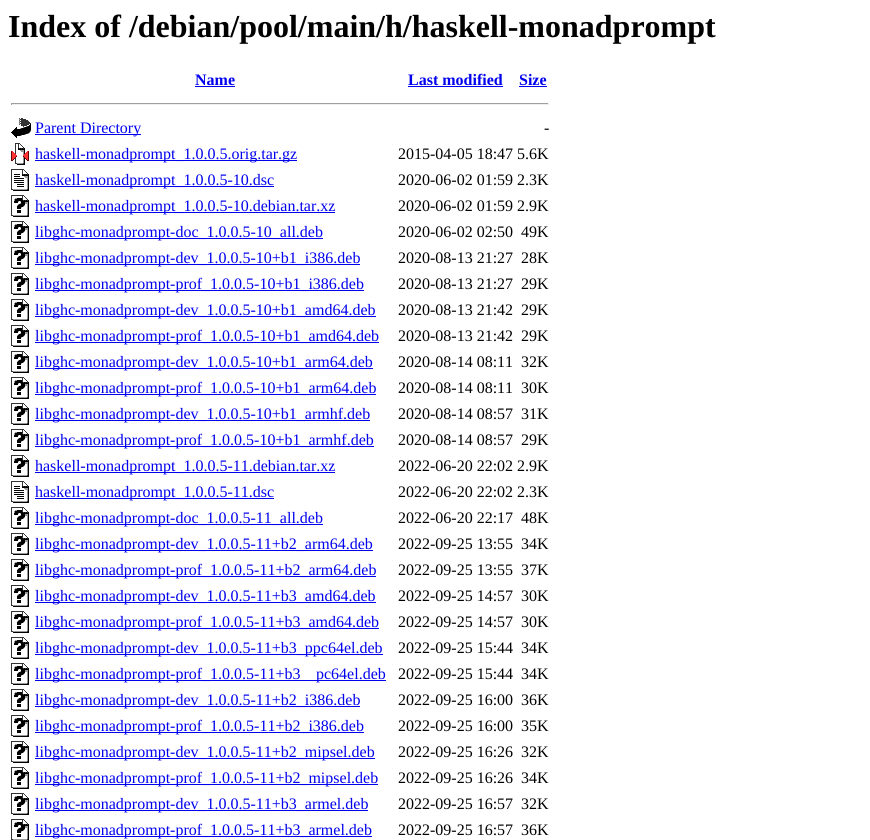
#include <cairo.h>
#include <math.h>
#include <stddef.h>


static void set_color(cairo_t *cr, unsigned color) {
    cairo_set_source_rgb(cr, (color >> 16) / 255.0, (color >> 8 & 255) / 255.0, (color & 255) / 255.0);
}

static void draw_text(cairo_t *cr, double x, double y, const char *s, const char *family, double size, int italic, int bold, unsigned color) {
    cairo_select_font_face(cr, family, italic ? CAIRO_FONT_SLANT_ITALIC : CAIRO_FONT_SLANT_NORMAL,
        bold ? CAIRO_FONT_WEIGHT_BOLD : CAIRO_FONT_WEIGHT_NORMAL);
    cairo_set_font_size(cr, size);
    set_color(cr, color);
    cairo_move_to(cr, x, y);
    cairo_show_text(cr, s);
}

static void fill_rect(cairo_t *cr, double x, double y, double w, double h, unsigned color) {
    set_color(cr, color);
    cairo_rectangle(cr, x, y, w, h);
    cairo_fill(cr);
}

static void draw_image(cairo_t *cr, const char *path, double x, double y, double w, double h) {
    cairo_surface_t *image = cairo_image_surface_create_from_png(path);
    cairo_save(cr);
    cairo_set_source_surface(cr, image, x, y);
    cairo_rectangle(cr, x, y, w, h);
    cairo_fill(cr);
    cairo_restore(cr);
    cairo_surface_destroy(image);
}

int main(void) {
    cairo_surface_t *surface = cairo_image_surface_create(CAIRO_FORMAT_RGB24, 870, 840);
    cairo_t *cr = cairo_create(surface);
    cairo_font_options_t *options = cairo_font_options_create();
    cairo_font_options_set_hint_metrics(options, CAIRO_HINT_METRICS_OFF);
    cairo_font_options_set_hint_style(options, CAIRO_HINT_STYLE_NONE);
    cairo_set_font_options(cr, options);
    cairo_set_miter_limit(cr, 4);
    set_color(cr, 0xFFFFFF);
    cairo_paint(cr);
    draw_text(cr, 8, 37, "Index of /debian/pool/main/h/haskell-monadprompt", "Liberation Serif", 32, 0, 1, 0x000000);
    draw_text(cr, 195, 85, "Name", "Liberation Serif", 16, 0, 1, 0x0000EE);
    fill_rect(cr, 195, 86, 40, 1, 0x0000EE);
    draw_text(cr, 408, 85, "Last modified", "Liberation Serif", 16, 0, 1, 0x0000EE);
    fill_rect(cr, 408, 86, 95, 1, 0x0000EE);
    draw_text(cr, 519, 85, "Size", "Liberation Serif", 16, 0, 1, 0x0000EE);
    fill_rect(cr, 519, 86, 28, 1, 0x0000EE);
    fill_rect(cr, 11, 103, 538, 1, 0x9F9F9F);
    fill_rect(cr, 548, 103, 1, 2, 0xEEEEEE);
    fill_rect(cr, 11, 104, 538, 1, 0xEEEEEE);
    fill_rect(cr, 11, 103, 1, 2, 0x9F9F9F);
    draw_image(cr, "assets/img1.png", 11, 118, 20, 20);
    fill_rect(cr, 35, 134, 106, 1, 0x0000EE);
    draw_text(cr, 35, 133, "Parent Directory", "Liberation Serif", 16, 0, 0, 0x0000EE);
    draw_text(cr, 544, 133, "-", "Liberation Serif", 16, 0, 0, 0x000000);
    draw_image(cr, "assets/img2.png", 11, 143, 18, 22);
    fill_rect(cr, 35, 160, 262, 1, 0x0000EE);
    draw_text(cr, 35, 159, "haskell-monadprompt_1.0.0.5.orig.tar.gz", "Liberation Serif", 16, 0, 0, 0x0000EE);
    draw_text(cr, 398, 159, "2015-04-05 18:47 5.6K", "Liberation Serif", 16, 0, 0, 0x000000);
    draw_image(cr, "assets/img3.png", 11, 169, 18, 22);
    fill_rect(cr, 35, 186, 239, 1, 0x0000EE);
    draw_text(cr, 35, 185, "haskell-monadprompt_1.0.0.5-10.dsc", "Liberation Serif", 16, 0, 0, 0x0000EE);
    draw_text(cr, 398, 185, "2020-06-02 01:59 2.3K", "Liberation Serif", 16, 0, 0, 0x000000);
    draw_image(cr, "assets/img4.png", 11, 195, 18, 22);
    fill_rect(cr, 35, 212, 300, 1, 0x0000EE);
    draw_text(cr, 35, 211, "haskell-monadprompt_1.0.0.5-10.debian.tar.xz", "Liberation Serif", 16, 0, 0, 0x0000EE);
    draw_text(cr, 398, 211, "2020-06-02 01:59 2.9K", "Liberation Serif", 16, 0, 0, 0x000000);
    draw_image(cr, "assets/img4.png", 11, 221, 18, 22);
    fill_rect(cr, 35, 238, 288, 1, 0x0000EE);
    draw_text(cr, 35, 237, "libghc-monadprompt-doc_1.0.0.5-10_all.deb", "Liberation Serif", 16, 0, 0, 0x0000EE);
    draw_text(cr, 398, 237, "2020-06-02 02:50", "Liberation Serif", 16, 0, 0, 0x000000);
    draw_text(cr, 521, 237, "49K", "Liberation Serif", 16, 0, 0, 0x000000);
    draw_image(cr, "assets/img4.png", 11, 247, 18, 22);
    fill_rect(cr, 35, 264, 325, 1, 0x0000EE);
    draw_text(cr, 35, 263, "libghc-monadprompt-dev_1.0.0.5-10+b1_i386.deb", "Liberation Serif", 16, 0, 0, 0x0000EE);
    draw_text(cr, 398, 263, "2020-08-13 21:27", "Liberation Serif", 16, 0, 0, 0x000000);
    draw_text(cr, 521, 263, "28K", "Liberation Serif", 16, 0, 0, 0x000000);
    draw_image(cr, "assets/img4.png", 11, 273, 18, 22);
    fill_rect(cr, 35, 290, 329, 1, 0x0000EE);
    draw_text(cr, 35, 289, "libghc-monadprompt-prof_1.0.0.5-10+b1_i386.deb", "Liberation Serif", 16, 0, 0, 0x0000EE);
    draw_text(cr, 398, 289, "2020-08-13 21:27", "Liberation Serif", 16, 0, 0, 0x000000);
    draw_text(cr, 521, 289, "29K", "Liberation Serif", 16, 0, 0, 0x000000);
    draw_image(cr, "assets/img4.png", 11, 299, 18, 22);
    fill_rect(cr, 35, 316, 341, 1, 0x0000EE);
    draw_text(cr, 35, 315, "libghc-monadprompt-dev_1.0.0.5-10+b1_amd64.deb", "Liberation Serif", 16, 0, 0, 0x0000EE);
    draw_text(cr, 398, 315, "2020-08-13 21:42", "Liberation Serif", 16, 0, 0, 0x000000);
    draw_text(cr, 521, 315, "29K", "Liberation Serif", 16, 0, 0, 0x000000);
    draw_image(cr, "assets/img4.png", 11, 325, 18, 22);
    fill_rect(cr, 35, 342, 344, 1, 0x0000EE);
    draw_text(cr, 35, 341, "libghc-monadprompt-prof_1.0.0.5-10+b1_amd64.deb", "Liberation Serif", 16, 0, 0, 0x0000EE);
    draw_text(cr, 398, 341, "2020-08-13 21:42", "Liberation Serif", 16, 0, 0, 0x000000);
    draw_text(cr, 521, 341, "29K", "Liberation Serif", 16, 0, 0, 0x000000);
    draw_image(cr, "assets/img4.png", 11, 351, 18, 22);
    fill_rect(cr, 35, 368, 338, 1, 0x0000EE);
    draw_text(cr, 35, 367, "libghc-monadprompt-dev_1.0.0.5-10+b1_arm64.deb", "Liberation Serif", 16, 0, 0, 0x0000EE);
    draw_text(cr, 398, 367, "2020-08-14 08:11", "Liberation Serif", 16, 0, 0, 0x000000);
    draw_text(cr, 521, 367, "32K", "Liberation Serif", 16, 0, 0, 0x000000);
    draw_image(cr, "assets/img4.png", 11, 377, 18, 22);
    fill_rect(cr, 35, 394, 341, 1, 0x0000EE);
    draw_text(cr, 35, 393, "libghc-monadprompt-prof_1.0.0.5-10+b1_arm64.deb", "Liberation Serif", 16, 0, 0, 0x0000EE);
    draw_text(cr, 398, 393, "2020-08-14 08:11", "Liberation Serif", 16, 0, 0, 0x000000);
    draw_text(cr, 521, 393, "30K", "Liberation Serif", 16, 0, 0, 0x000000);
    draw_image(cr, "assets/img4.png", 11, 403, 18, 22);
    fill_rect(cr, 35, 420, 335, 1, 0x0000EE);
    draw_text(cr, 35, 419, "libghc-monadprompt-dev_1.0.0.5-10+b1_armhf.deb", "Liberation Serif", 16, 0, 0, 0x0000EE);
    draw_text(cr, 398, 419, "2020-08-14 08:57", "Liberation Serif", 16, 0, 0, 0x000000);
    draw_text(cr, 521, 419, "31K", "Liberation Serif", 16, 0, 0, 0x000000);
    draw_image(cr, "assets/img4.png", 11, 429, 18, 22);
    fill_rect(cr, 35, 446, 339, 1, 0x0000EE);
    draw_text(cr, 35, 445, "libghc-monadprompt-prof_1.0.0.5-10+b1_armhf.deb", "Liberation Serif", 16, 0, 0, 0x0000EE);
    draw_text(cr, 398, 445, "2020-08-14 08:57", "Liberation Serif", 16, 0, 0, 0x000000);
    draw_text(cr, 521, 445, "29K", "Liberation Serif", 16, 0, 0, 0x000000);
    draw_image(cr, "assets/img4.png", 11, 455, 18, 22);
    fill_rect(cr, 35, 472, 300, 1, 0x0000EE);
    draw_text(cr, 35, 471, "haskell-monadprompt_1.0.0.5-11.debian.tar.xz", "Liberation Serif", 16, 0, 0, 0x0000EE);
    draw_text(cr, 398, 471, "2022-06-20 22:02 2.9K", "Liberation Serif", 16, 0, 0, 0x000000);
    draw_image(cr, "assets/img3.png", 11, 481, 18, 22);
    fill_rect(cr, 35, 498, 239, 1, 0x0000EE);
    draw_text(cr, 35, 497, "haskell-monadprompt_1.0.0.5-11.dsc", "Liberation Serif", 16, 0, 0, 0x0000EE);
    draw_text(cr, 398, 497, "2022-06-20 22:02 2.3K", "Liberation Serif", 16, 0, 0, 0x000000);
    draw_image(cr, "assets/img4.png", 11, 507, 18, 22);
    fill_rect(cr, 35, 524, 288, 1, 0x0000EE);
    draw_text(cr, 35, 523, "libghc-monadprompt-doc_1.0.0.5-11_all.deb", "Liberation Serif", 16, 0, 0, 0x0000EE);
    draw_text(cr, 398, 523, "2022-06-20 22:17", "Liberation Serif", 16, 0, 0, 0x000000);
    draw_text(cr, 521, 523, "48K", "Liberation Serif", 16, 0, 0, 0x000000);
    draw_image(cr, "assets/img4.png", 11, 533, 18, 22);
    fill_rect(cr, 35, 550, 338, 1, 0x0000EE);
    draw_text(cr, 35, 549, "libghc-monadprompt-dev_1.0.0.5-11+b2_arm64.deb", "Liberation Serif", 16, 0, 0, 0x0000EE);
    draw_text(cr, 398, 549, "2022-09-25 13:55", "Liberation Serif", 16, 0, 0, 0x000000);
    draw_text(cr, 521, 549, "34K", "Liberation Serif", 16, 0, 0, 0x000000);
    draw_image(cr, "assets/img4.png", 11, 559, 18, 22);
    fill_rect(cr, 35, 576, 341, 1, 0x0000EE);
    draw_text(cr, 35, 575, "libghc-monadprompt-prof_1.0.0.5-11+b2_arm64.deb", "Liberation Serif", 16, 0, 0, 0x0000EE);
    draw_text(cr, 398, 575, "2022-09-25 13:55", "Liberation Serif", 16, 0, 0, 0x000000);
    draw_text(cr, 521, 575, "37K", "Liberation Serif", 16, 0, 0, 0x000000);
    draw_image(cr, "assets/img4.png", 11, 585, 18, 22);
    fill_rect(cr, 35, 602, 341, 1, 0x0000EE);
    draw_text(cr, 35, 601, "libghc-monadprompt-dev_1.0.0.5-11+b3_amd64.deb", "Liberation Serif", 16, 0, 0, 0x0000EE);
    draw_text(cr, 398, 601, "2022-09-25 14:57", "Liberation Serif", 16, 0, 0, 0x000000);
    draw_text(cr, 521, 601, "30K", "Liberation Serif", 16, 0, 0, 0x000000);
    draw_image(cr, "assets/img4.png", 11, 611, 18, 22);
    fill_rect(cr, 35, 628, 344, 1, 0x0000EE);
    draw_text(cr, 35, 627, "libghc-monadprompt-prof_1.0.0.5-11+b3_amd64.deb", "Liberation Serif", 16, 0, 0, 0x0000EE);
    draw_text(cr, 398, 627, "2022-09-25 14:57", "Liberation Serif", 16, 0, 0, 0x000000);
    draw_text(cr, 521, 627, "30K", "Liberation Serif", 16, 0, 0, 0x000000);
    draw_image(cr, "assets/img4.png", 11, 637, 18, 22);
    fill_rect(cr, 35, 654, 348, 1, 0x0000EE);
    draw_text(cr, 35, 653, "libghc-monadprompt-dev_1.0.0.5-11+b3_ppc64el.deb", "Liberation Serif", 16, 0, 0, 0x0000EE);
    draw_text(cr, 398, 653, "2022-09-25 15:44", "Liberation Serif", 16, 0, 0, 0x000000);
    draw_text(cr, 521, 653, "34K", "Liberation Serif", 16, 0, 0, 0x000000);
    draw_image(cr, "assets/img4.png", 11, 663, 18, 22);
    fill_rect(cr, 35, 680, 351, 1, 0x0000EE);
    draw_text(cr, 35, 679, "libghc-monadprompt-prof_1.0.0.5-11+b3", "Liberation Serif", 16, 0, 0, 0x0000EE);
    draw_text(cr, 316, 679, "pc64el.deb", "Liberation Serif", 16, 0, 0, 0x0000EE);
    draw_text(cr, 398, 679, "2022-09-25 15:44", "Liberation Serif", 16, 0, 0, 0x000000);
    draw_text(cr, 521, 679, "34K", "Liberation Serif", 16, 0, 0, 0x000000);
    draw_image(cr, "assets/img4.png", 11, 689, 18, 22);
    fill_rect(cr, 35, 706, 325, 1, 0x0000EE);
    draw_text(cr, 35, 705, "libghc-monadprompt-dev_1.0.0.5-11+b2_i386.deb", "Liberation Serif", 16, 0, 0, 0x0000EE);
    draw_text(cr, 398, 705, "2022-09-25 16:00", "Liberation Serif", 16, 0, 0, 0x000000);
    draw_text(cr, 521, 705, "36K", "Liberation Serif", 16, 0, 0, 0x000000);
    draw_image(cr, "assets/img4.png", 11, 715, 18, 22);
    fill_rect(cr, 35, 732, 329, 1, 0x0000EE);
    draw_text(cr, 35, 731, "libghc-monadprompt-prof_1.0.0.5-11+b2_i386.deb", "Liberation Serif", 16, 0, 0, 0x0000EE);
    draw_text(cr, 398, 731, "2022-09-25 16:00", "Liberation Serif", 16, 0, 0, 0x000000);
    draw_text(cr, 521, 731, "35K", "Liberation Serif", 16, 0, 0, 0x000000);
    draw_image(cr, "assets/img4.png", 11, 741, 18, 22);
    fill_rect(cr, 35, 758, 340, 1, 0x0000EE);
    draw_text(cr, 35, 757, "libghc-monadprompt-dev_1.0.0.5-11+b2_mipsel.deb", "Liberation Serif", 16, 0, 0, 0x0000EE);
    draw_text(cr, 398, 757, "2022-09-25 16:26", "Liberation Serif", 16, 0, 0, 0x000000);
    draw_text(cr, 521, 757, "32K", "Liberation Serif", 16, 0, 0, 0x000000);
    draw_image(cr, "assets/img4.png", 11, 767, 18, 22);
    fill_rect(cr, 35, 784, 343, 1, 0x0000EE);
    draw_text(cr, 35, 783, "libghc-monadprompt-prof_1.0.0.5-11+b2_mipsel.deb", "Liberation Serif", 16, 0, 0, 0x0000EE);
    draw_text(cr, 398, 783, "2022-09-25 16:26", "Liberation Serif", 16, 0, 0, 0x000000);
    draw_text(cr, 521, 783, "34K", "Liberation Serif", 16, 0, 0, 0x000000);
    draw_image(cr, "assets/img4.png", 11, 793, 18, 22);
    fill_rect(cr, 35, 810, 333, 1, 0x0000EE);
    draw_text(cr, 35, 809, "libghc-monadprompt-dev_1.0.0.5-11+b3_armel.deb", "Liberation Serif", 16, 0, 0, 0x0000EE);
    draw_text(cr, 398, 809, "2022-09-25 16:57", "Liberation Serif", 16, 0, 0, 0x000000);
    draw_text(cr, 521, 809, "32K", "Liberation Serif", 16, 0, 0, 0x000000);
    draw_image(cr, "assets/img5.png", 11, 819, 18, 21);
    fill_rect(cr, 35, 836, 337, 1, 0x0000EE);
    draw_text(cr, 35, 835, "libghc-monadprompt-prof_1.0.0.5-11+b3_armel.deb", "Liberation Serif", 16, 0, 0, 0x0000EE);
    draw_text(cr, 398, 835, "2022-09-25 16:57", "Liberation Serif", 16, 0, 0, 0x000000);
    draw_text(cr, 521, 835, "36K", "Liberation Serif", 16, 0, 0, 0x000000);
    cairo_surface_write_to_png(surface, "output.png");
    cairo_font_options_destroy(options);
    cairo_destroy(cr);
    cairo_surface_destroy(surface);
    return 0;
}
